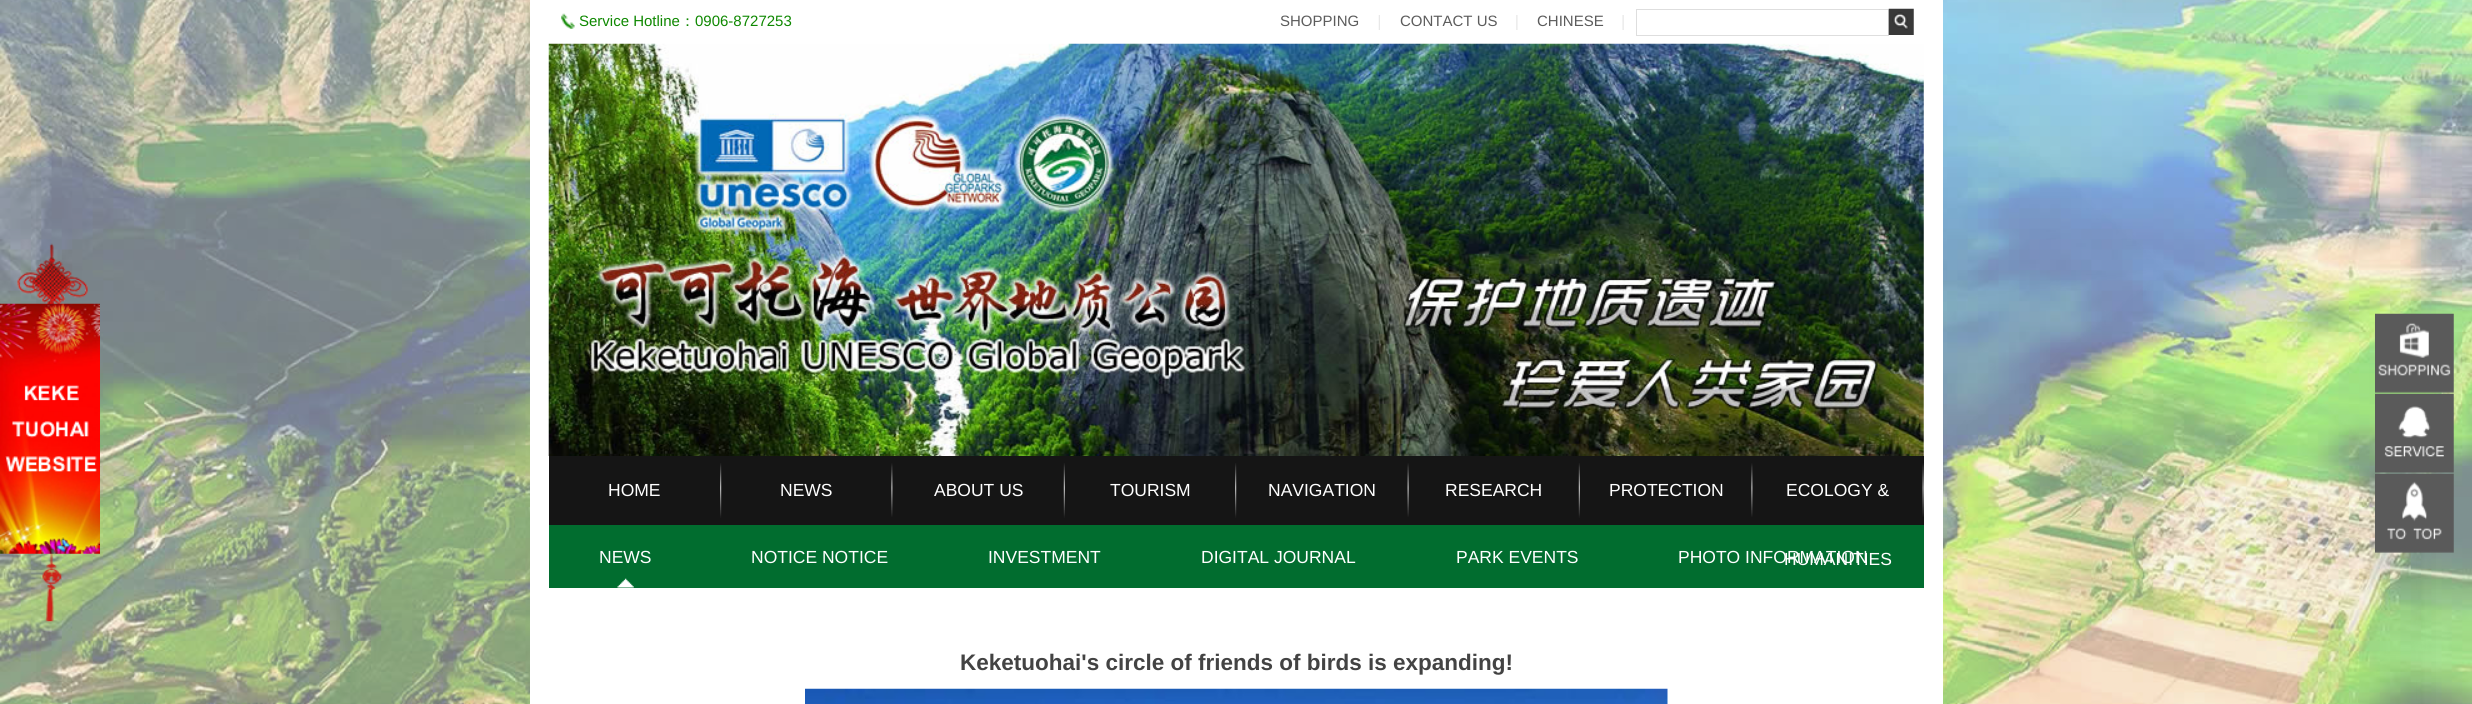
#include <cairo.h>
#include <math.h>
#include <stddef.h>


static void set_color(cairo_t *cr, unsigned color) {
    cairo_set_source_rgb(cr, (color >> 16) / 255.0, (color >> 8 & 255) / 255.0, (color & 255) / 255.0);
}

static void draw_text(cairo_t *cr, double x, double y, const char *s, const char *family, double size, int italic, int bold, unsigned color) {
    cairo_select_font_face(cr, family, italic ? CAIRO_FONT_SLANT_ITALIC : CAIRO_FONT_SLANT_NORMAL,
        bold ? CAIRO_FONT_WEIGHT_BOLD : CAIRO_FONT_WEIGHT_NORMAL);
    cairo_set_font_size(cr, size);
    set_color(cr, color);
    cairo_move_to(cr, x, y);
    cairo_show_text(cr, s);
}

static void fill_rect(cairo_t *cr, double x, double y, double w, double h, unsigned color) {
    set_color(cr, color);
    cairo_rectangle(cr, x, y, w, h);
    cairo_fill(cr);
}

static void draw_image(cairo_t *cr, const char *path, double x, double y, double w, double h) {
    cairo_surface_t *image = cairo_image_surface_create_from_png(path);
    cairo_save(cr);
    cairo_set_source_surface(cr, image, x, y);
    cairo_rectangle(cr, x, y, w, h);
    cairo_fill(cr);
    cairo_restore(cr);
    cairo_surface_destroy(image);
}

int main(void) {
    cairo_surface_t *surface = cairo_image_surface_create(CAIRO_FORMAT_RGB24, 2472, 704);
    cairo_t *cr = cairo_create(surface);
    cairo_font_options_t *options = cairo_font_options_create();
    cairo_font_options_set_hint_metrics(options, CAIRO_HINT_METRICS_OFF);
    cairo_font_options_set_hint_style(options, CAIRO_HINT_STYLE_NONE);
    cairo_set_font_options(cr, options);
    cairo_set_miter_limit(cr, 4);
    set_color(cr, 0xFFFFFF);
    cairo_paint(cr);
    draw_image(cr, "assets/img1.png", 36, 0, 2400, 704);
    draw_image(cr, "assets/img2.png", 0, 0, 2472, 704);
    draw_image(cr, "assets/img3.png", 0, 243, 100, 379);
    fill_rect(cr, 530, 0, 1413, 704, 0xFFFFFF);
    draw_image(cr, "assets/img4.png", 561, 13, 14, 16);
    draw_text(cr, 579, 26, "Service Hotline", "Liberation Sans", 15, 0, 0, 0x0E8800);
    draw_text(cr, 680, 26, "：", "WenQuanYi Zen Hei Medium", 15, 0, 0, 0x0E8800);
    draw_text(cr, 695, 26, "0906-8727253", "Liberation Sans", 15, 0, 0, 0x0E8800);
    draw_image(cr, "assets/img5.png", 1378, 15, 2, 15);
    draw_text(cr, 1280, 26, "SHOPPING", "Liberation Sans", 15, 0, 0, 0x5C5C5C);
    draw_image(cr, "assets/img6.png", 1516, 15, 2, 15);
    draw_text(cr, 1400, 26, "CONTACT US", "Liberation Sans", 15, 0, 0, 0x5C5C5C);
    draw_image(cr, "assets/img7.png", 1622, 15, 2, 15);
    draw_text(cr, 1537, 26, "CHINESE", "Liberation Sans", 15, 0, 0, 0x5C5C5C);
    cairo_rectangle(cr, 1636.5, 9.5, 252, 26);
    set_color(cr, 0xDEDEDE);
    cairo_set_line_width(cr, 1);
    cairo_stroke(cr);
    draw_image(cr, "assets/img8.png", 1888, 8, 26, 27);
    draw_image(cr, "assets/img9.png", 548, 43, 1376, 413);
    fill_rect(cr, 549, 456, 1375, 69, 0x151515);
    draw_image(cr, "assets/img10.png", 720, 463, 2, 55);
    draw_text(cr, 608, 496, "HOME", "Liberation Sans", 17.5, 0, 0, 0xFFFFFF);
    draw_image(cr, "assets/img11.png", 891, 463, 2, 54);
    draw_text(cr, 780, 496, "NEWS", "Liberation Sans", 17.5, 0, 0, 0xFFFFFF);
    draw_image(cr, "assets/img12.png", 1063, 463, 2, 55);
    draw_text(cr, 934, 496, "ABOUT US", "Liberation Sans", 17.5, 0, 0, 0xFFFFFF);
    draw_image(cr, "assets/img10.png", 1235, 463, 2, 55);
    draw_text(cr, 1110, 496, "TOURISM", "Liberation Sans", 17.5, 0, 0, 0xFFFFFF);
    draw_image(cr, "assets/img13.png", 1407, 463, 2, 54);
    draw_text(cr, 1268, 496, "NAVIGATION", "Liberation Sans", 17.5, 0, 0, 0xFFFFFF);
    draw_image(cr, "assets/img12.png", 1578, 463, 2, 55);
    draw_text(cr, 1445, 496, "RESEARCH", "Liberation Sans", 17.5, 0, 0, 0xFFFFFF);
    draw_image(cr, "assets/img11.png", 1751, 463, 2, 54);
    draw_text(cr, 1609, 496, "PROTECTION", "Liberation Sans", 17.5, 0, 0, 0xFFFFFF);
    draw_image(cr, "assets/img13.png", 1922, 463, 2, 54);
    draw_text(cr, 1786, 496, "ECOLOGY &", "Liberation Sans", 17.5, 0, 0, 0xFFFFFF);
    fill_rect(cr, 549, 525, 1375, 63, 0x016D2F);
    draw_text(cr, 1678, 563, "PHOTO INFORMATION", "Liberation Sans", 17.5, 0, 0, 0xFFFFFF);
    draw_text(cr, 1784, 565, "HUMANITIES", "Liberation Sans", 17.5, 0, 0, 0xFFFFFF);
    draw_image(cr, "assets/img14.png", 617, 578, 17, 10);
    draw_text(cr, 599, 563, "NEWS", "Liberation Sans", 17.5, 0, 0, 0xFFFFFF);
    draw_text(cr, 751, 563, "NOTICE NOTICE", "Liberation Sans", 17.5, 0, 0, 0xFFFFFF);
    draw_text(cr, 988, 563, "INVESTMENT", "Liberation Sans", 17.5, 0, 0, 0xFFFFFF);
    draw_text(cr, 1201, 563, "DIGITAL JOURNAL", "Liberation Sans", 17.5, 0, 0, 0xFFFFFF);
    draw_text(cr, 1456, 563, "PARK EVENTS", "Liberation Sans", 17.5, 0, 0, 0xFFFFFF);
    draw_text(cr, 960, 670, "Keketuohai's circle of friends of birds is expanding!", "Liberation Sans", 22.5, 0, 1, 0x434343);
    draw_image(cr, "assets/img15.png", 805, 688, 863, 16);
    draw_image(cr, "assets/img16.png", 2375, 313, 79, 80);
    draw_image(cr, "assets/img17.png", 2375, 393, 79, 80);
    draw_image(cr, "assets/img18.png", 2375, 473, 79, 80);
    cairo_surface_write_to_png(surface, "output.png");
    cairo_font_options_destroy(options);
    cairo_destroy(cr);
    cairo_surface_destroy(surface);
    return 0;
}
